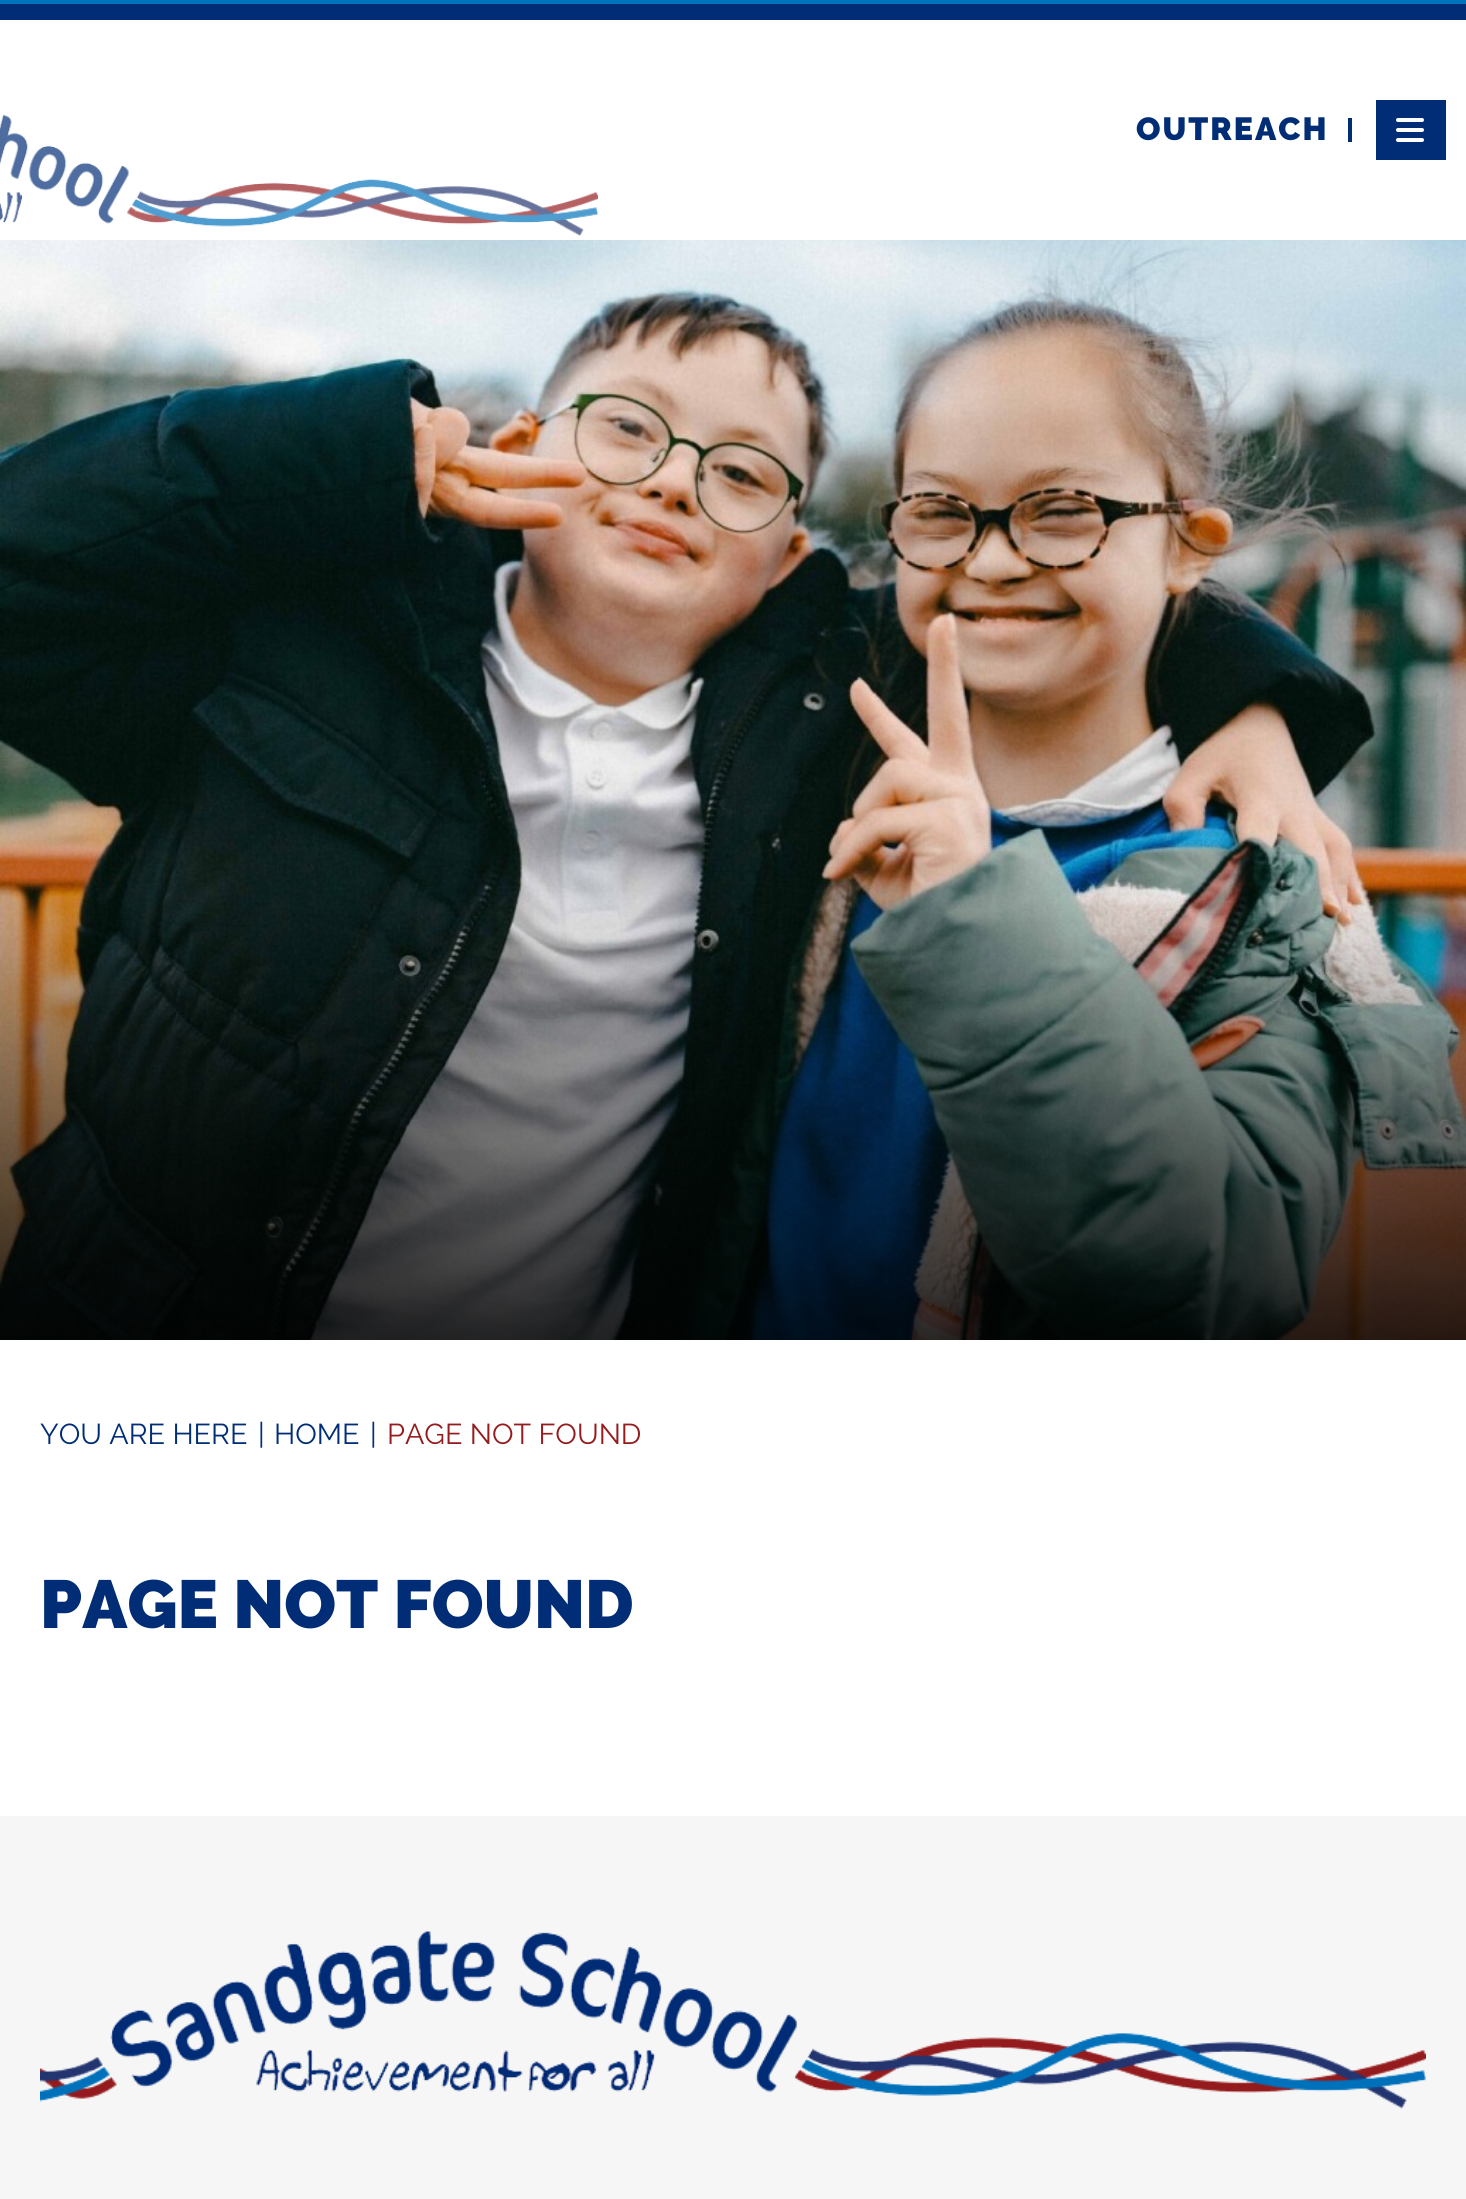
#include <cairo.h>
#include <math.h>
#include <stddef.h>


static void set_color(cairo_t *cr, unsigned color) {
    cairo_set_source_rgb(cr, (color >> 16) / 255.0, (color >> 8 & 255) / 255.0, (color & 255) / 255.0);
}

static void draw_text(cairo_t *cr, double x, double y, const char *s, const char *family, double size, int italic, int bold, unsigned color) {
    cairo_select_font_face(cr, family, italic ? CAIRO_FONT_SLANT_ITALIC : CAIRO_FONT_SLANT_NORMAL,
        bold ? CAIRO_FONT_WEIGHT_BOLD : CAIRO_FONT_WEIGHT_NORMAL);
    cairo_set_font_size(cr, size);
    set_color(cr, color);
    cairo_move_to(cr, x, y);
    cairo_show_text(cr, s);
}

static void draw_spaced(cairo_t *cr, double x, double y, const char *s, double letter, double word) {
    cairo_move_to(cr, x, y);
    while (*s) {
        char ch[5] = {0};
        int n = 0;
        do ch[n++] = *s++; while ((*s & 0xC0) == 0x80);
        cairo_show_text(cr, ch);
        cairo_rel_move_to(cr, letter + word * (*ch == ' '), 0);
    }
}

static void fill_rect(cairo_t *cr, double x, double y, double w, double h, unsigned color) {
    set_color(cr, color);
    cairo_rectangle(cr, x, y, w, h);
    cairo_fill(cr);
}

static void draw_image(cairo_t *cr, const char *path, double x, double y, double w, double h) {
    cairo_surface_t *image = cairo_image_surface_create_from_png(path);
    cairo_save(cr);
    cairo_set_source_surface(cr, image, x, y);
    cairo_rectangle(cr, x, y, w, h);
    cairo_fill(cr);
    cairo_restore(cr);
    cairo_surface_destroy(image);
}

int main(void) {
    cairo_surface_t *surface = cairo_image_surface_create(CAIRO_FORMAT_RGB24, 1466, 2199);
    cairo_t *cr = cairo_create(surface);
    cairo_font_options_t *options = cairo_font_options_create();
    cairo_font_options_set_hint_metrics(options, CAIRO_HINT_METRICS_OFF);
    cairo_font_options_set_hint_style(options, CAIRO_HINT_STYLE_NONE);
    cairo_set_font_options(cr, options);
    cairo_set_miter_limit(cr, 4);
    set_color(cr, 0xFFFFFF);
    cairo_paint(cr);
    fill_rect(cr, 0, 0, 1466, 4, 0x0173BC);
    fill_rect(cr, 0, 4, 1466, 16, 0x012D76);
    draw_image(cr, "assets/img1.png", 0, 115, 598, 121);
    cairo_select_font_face(cr, "Raleway Black", CAIRO_FONT_SLANT_NORMAL, CAIRO_FONT_WEIGHT_NORMAL);
    cairo_set_font_size(cr, 32);
    draw_spaced(cr, 1136, 140, "OUTREACH", 2, 0);
    fill_rect(cr, 1348, 118, 4, 24, 0x012D76);
    fill_rect(cr, 1376, 100, 70, 60, 0x012D76);
    draw_image(cr, "assets/img2.png", 1396, 118, 28, 24);
    draw_image(cr, "assets/img3.png", 0, 240, 1466, 1100);
    draw_text(cr, 40, 1444, "YOU ARE HERE", "Raleway", 28.75, 0, 0, 0x012D76);
    draw_text(cr, 258, 1444, "|", "Raleway", 28.75, 0, 0, 0x012D76);
    draw_text(cr, 274, 1444, "HOME", "Raleway", 28.75, 0, 0, 0x012D76);
    draw_text(cr, 370, 1444, "|", "Raleway", 28.75, 0, 0, 0x012D76);
    draw_text(cr, 387, 1444, "PAGE NOT FOUND", "Raleway", 28.75, 0, 0, 0x941C1E);
    draw_text(cr, 40, 1628, "PAGE NOT FOUND", "Raleway Black", 67.75, 0, 0, 0x012D76);
    fill_rect(cr, 0, 1816, 1466, 383, 0xF6F6F6);
    draw_image(cr, "assets/img4.png", 40, 1931, 1386, 178);
    cairo_surface_write_to_png(surface, "output.png");
    cairo_font_options_destroy(options);
    cairo_destroy(cr);
    cairo_surface_destroy(surface);
    return 0;
}
